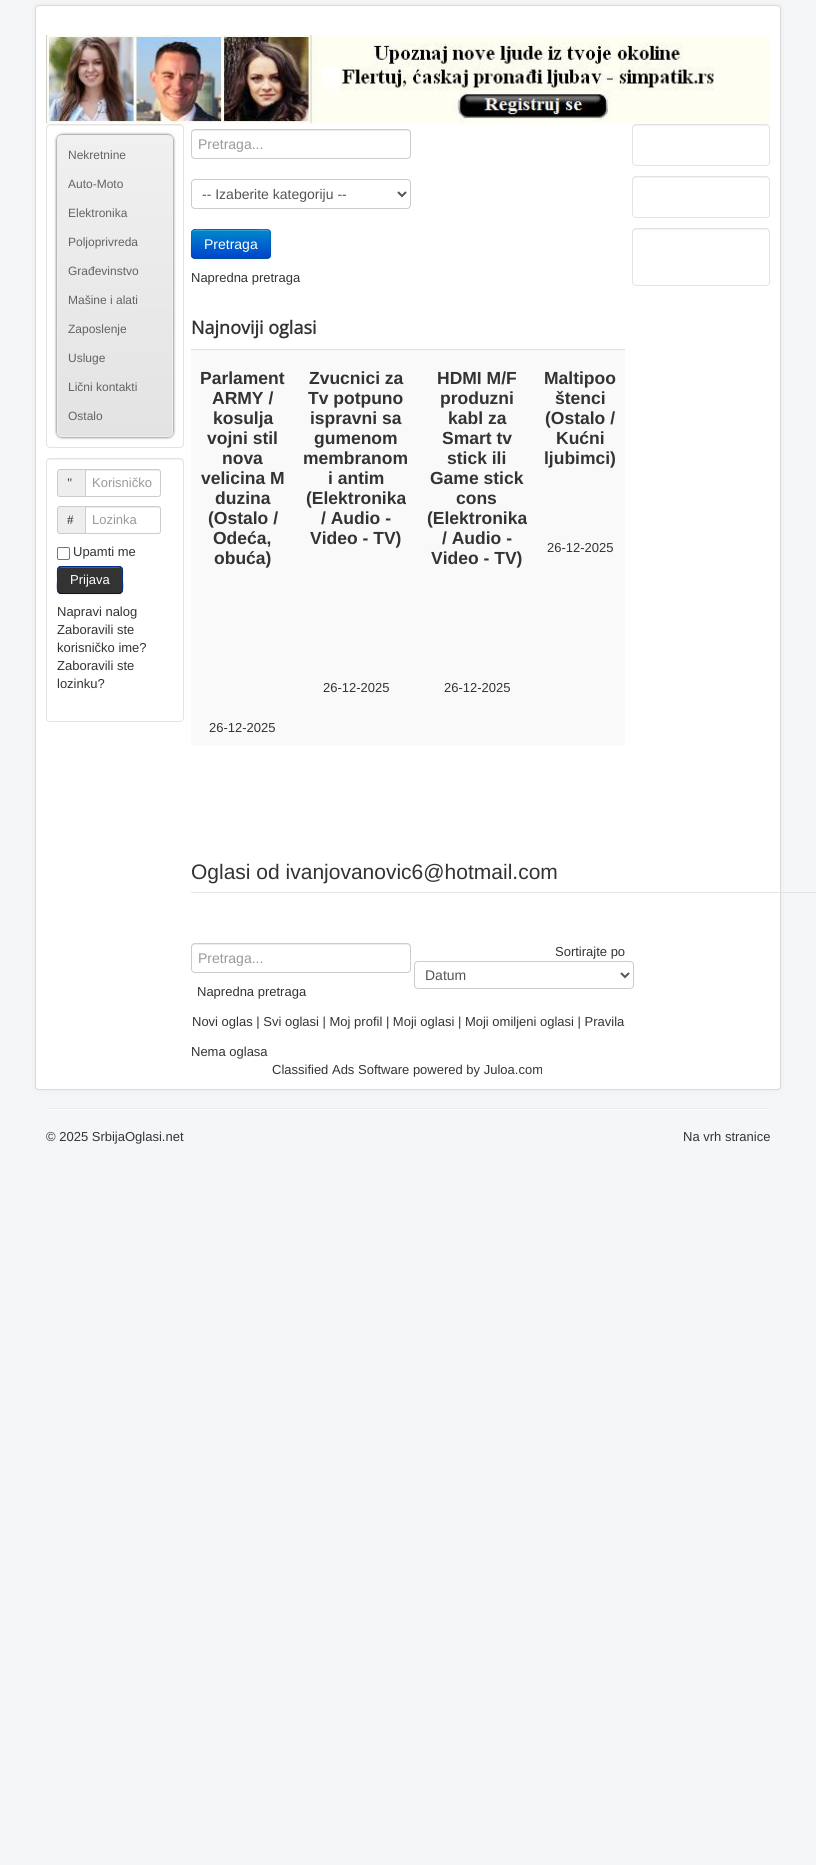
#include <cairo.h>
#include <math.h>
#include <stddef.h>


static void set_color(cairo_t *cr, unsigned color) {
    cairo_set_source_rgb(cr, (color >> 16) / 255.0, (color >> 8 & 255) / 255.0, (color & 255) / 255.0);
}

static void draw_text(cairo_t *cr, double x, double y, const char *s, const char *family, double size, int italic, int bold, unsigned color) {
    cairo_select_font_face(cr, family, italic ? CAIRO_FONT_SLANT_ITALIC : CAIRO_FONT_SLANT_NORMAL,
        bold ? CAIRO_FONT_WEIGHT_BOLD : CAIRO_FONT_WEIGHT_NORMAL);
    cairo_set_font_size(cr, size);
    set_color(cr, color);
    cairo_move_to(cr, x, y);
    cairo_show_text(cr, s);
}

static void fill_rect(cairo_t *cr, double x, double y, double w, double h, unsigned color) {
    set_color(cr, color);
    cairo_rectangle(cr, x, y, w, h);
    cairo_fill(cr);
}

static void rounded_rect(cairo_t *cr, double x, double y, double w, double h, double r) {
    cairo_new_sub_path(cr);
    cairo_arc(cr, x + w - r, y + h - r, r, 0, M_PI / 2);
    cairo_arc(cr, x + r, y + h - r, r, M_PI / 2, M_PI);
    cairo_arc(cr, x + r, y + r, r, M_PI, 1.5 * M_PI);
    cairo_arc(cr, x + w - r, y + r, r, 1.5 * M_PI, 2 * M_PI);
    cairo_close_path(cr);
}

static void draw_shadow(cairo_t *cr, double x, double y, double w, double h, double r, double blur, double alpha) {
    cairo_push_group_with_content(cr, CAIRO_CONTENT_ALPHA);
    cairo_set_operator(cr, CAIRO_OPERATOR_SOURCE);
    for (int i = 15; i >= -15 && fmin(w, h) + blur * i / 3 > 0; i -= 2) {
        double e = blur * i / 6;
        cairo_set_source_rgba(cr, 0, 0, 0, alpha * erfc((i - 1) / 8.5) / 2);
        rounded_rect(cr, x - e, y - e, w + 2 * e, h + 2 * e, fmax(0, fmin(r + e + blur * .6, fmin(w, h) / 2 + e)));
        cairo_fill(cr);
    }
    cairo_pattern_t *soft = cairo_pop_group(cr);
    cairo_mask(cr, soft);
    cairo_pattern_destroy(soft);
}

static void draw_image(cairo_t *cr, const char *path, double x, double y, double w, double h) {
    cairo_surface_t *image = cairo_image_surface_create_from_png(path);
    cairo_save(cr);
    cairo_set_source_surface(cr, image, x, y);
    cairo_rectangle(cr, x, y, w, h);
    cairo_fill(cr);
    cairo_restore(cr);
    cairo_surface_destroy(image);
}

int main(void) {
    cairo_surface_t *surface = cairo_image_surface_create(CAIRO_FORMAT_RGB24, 816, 1865);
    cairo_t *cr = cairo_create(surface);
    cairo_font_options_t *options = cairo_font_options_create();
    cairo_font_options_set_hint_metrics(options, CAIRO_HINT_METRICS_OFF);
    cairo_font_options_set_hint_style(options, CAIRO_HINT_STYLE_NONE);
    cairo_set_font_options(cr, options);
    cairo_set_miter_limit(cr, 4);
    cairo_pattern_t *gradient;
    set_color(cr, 0xF4F6F7);
    cairo_paint(cr);
    set_color(cr, 0x000000);
    draw_shadow(cr, 35, 5, 746, 1085, 4, 3, 0.05);
    set_color(cr, 0xFFFFFF);
    rounded_rect(cr, 35, 5, 746, 1085, 4);
    cairo_fill(cr);
    rounded_rect(cr, 35.5, 5.5, 745, 1084, 3.5);
    cairo_set_source_rgba(cr, 0, 0, 0, 0.15);
    cairo_set_line_width(cr, 1);
    cairo_stroke(cr);
    draw_image(cr, "assets/img1.png", 46, 35, 724, 89);
    set_color(cr, 0xF2F2F2);
    cairo_new_path(cr);
    cairo_move_to(cr, 50, 126);
    cairo_line_to(cr, 180, 126);
    cairo_curve_to(cr, 182, 126, 183, 127, 183, 129);
    cairo_curve_to(cr, 183, 127, 183, 125, 181, 125);
    cairo_line_to(cr, 49, 125);
    cairo_curve_to(cr, 47, 125, 47, 127, 47, 129);
    cairo_curve_to(cr, 47, 127, 48, 126, 50, 126);
    cairo_close_path(cr);
    cairo_fill(cr);
    rounded_rect(cr, 46.5, 124.5, 137, 323, 3.5);
    set_color(cr, 0xE3E3E3);
    cairo_stroke(cr);
    set_color(cr, 0x444444);
    draw_shadow(cr, 57, 135, 116, 302, 5, 1.5, 1);
    cairo_save(cr);
    rounded_rect(cr, 57, 135, 116, 302, 5);
    cairo_clip(cr);
    gradient = cairo_pattern_create_linear(115, 136, 115, 436);
    cairo_pattern_add_color_stop_rgba(gradient, 0, 0.941, 0.941, 0.941, 1);
    cairo_pattern_add_color_stop_rgba(gradient, 1, 0.89, 0.89, 0.89, 1);
    cairo_set_source(cr, gradient);
    cairo_pattern_destroy(gradient);
    cairo_rectangle(cr, 57, 136, 116, 300);
    cairo_fill(cr);
    cairo_restore(cr);
    rounded_rect(cr, 57.5, 135.5, 115, 301, 4.5);
    set_color(cr, 0xEFEFEF);
    cairo_stroke(cr);
    draw_text(cr, 68, 159, "Nekretnine", "Liberation Sans", 12, 0, 0, 0x636363);
    draw_text(cr, 68, 188, "Auto-Moto", "Liberation Sans", 12, 0, 0, 0x636363);
    draw_text(cr, 68, 217, "Elektronika", "Liberation Sans", 12, 0, 0, 0x636363);
    draw_text(cr, 68, 246, "Poljoprivreda", "Liberation Sans", 12, 0, 0, 0x636363);
    draw_text(cr, 68, 275, "Građevinstvo", "Liberation Sans", 12, 0, 0, 0x636363);
    draw_text(cr, 68, 304, "Mašine i alati", "Liberation Sans", 12, 0, 0, 0x636363);
    draw_text(cr, 68, 333, "Zaposlenje", "Liberation Sans", 12, 0, 0, 0x636363);
    draw_text(cr, 68, 362, "Usluge", "Liberation Sans", 12, 0, 0, 0x636363);
    draw_text(cr, 68, 391, "Lični kontakti", "Liberation Sans", 12, 0, 0, 0x636363);
    draw_text(cr, 68, 420, "Ostalo", "Liberation Sans", 12, 0, 0, 0x636363);
    set_color(cr, 0xF2F2F2);
    cairo_new_path(cr);
    cairo_move_to(cr, 50, 460);
    cairo_line_to(cr, 180, 460);
    cairo_curve_to(cr, 182, 460, 183, 461, 183, 463);
    cairo_curve_to(cr, 183, 461, 183, 459, 181, 459);
    cairo_line_to(cr, 49, 459);
    cairo_curve_to(cr, 47, 459, 47, 461, 47, 463);
    cairo_curve_to(cr, 47, 461, 48, 460, 50, 460);
    cairo_close_path(cr);
    cairo_fill(cr);
    rounded_rect(cr, 46.5, 458.5, 137, 263, 3.5);
    set_color(cr, 0xE3E3E3);
    cairo_stroke(cr);
    set_color(cr, 0xEEEEEE);
    cairo_new_path(cr);
    cairo_move_to(cr, 60, 469.5);
    cairo_line_to(cr, 85.5, 469.5);
    cairo_line_to(cr, 85.5, 496.5);
    cairo_line_to(cr, 60, 496.5);
    cairo_curve_to(cr, 58.5, 496.5, 57.5, 495.5, 57.5, 494);
    cairo_line_to(cr, 57.5, 472);
    cairo_curve_to(cr, 57.5, 470.5, 58.5, 469.5, 60, 469.5);
    cairo_close_path(cr);
    cairo_fill_preserve(cr);
    set_color(cr, 0xCCCCCC);
    cairo_stroke(cr);
    draw_text(cr, 67, 487, "\"", "Liberation Serif", 13, 0, 0, 0x333333);
    set_color(cr, 0xFFFFFF);
    cairo_new_path(cr);
    cairo_move_to(cr, 85, 469);
    cairo_line_to(cr, 158, 469);
    cairo_curve_to(cr, 159.5, 469, 161, 470.5, 161, 472);
    cairo_line_to(cr, 161, 494);
    cairo_curve_to(cr, 161, 495.5, 159.5, 497, 158, 497);
    cairo_line_to(cr, 85, 497);
    cairo_close_path(cr);
    cairo_fill(cr);
    set_color(cr, 0xECECEC);
    cairo_new_path(cr);
    cairo_move_to(cr, 86, 471);
    cairo_line_to(cr, 158, 471);
    cairo_curve_to(cr, 159, 471, 160, 472, 160, 473);
    cairo_line_to(cr, 160, 472);
    cairo_curve_to(cr, 160, 471, 159, 470, 158, 470);
    cairo_line_to(cr, 86, 470);
    cairo_close_path(cr);
    cairo_fill(cr);
    cairo_new_path(cr);
    cairo_move_to(cr, 85.5, 469.5);
    cairo_line_to(cr, 158, 469.5);
    cairo_curve_to(cr, 159.5, 469.5, 160.5, 470.5, 160.5, 472);
    cairo_line_to(cr, 160.5, 494);
    cairo_curve_to(cr, 160.5, 495.5, 159.5, 496.5, 158, 496.5);
    cairo_line_to(cr, 85.5, 496.5);
    cairo_close_path(cr);
    set_color(cr, 0xCCCCCC);
    cairo_stroke(cr);
    draw_text(cr, 92, 487, "Korisničko", "Liberation Sans", 13, 0, 0, 0x999999);
    set_color(cr, 0xEEEEEE);
    cairo_new_path(cr);
    cairo_move_to(cr, 60, 506.5);
    cairo_line_to(cr, 85.5, 506.5);
    cairo_line_to(cr, 85.5, 533.5);
    cairo_line_to(cr, 60, 533.5);
    cairo_curve_to(cr, 58.5, 533.5, 57.5, 532.5, 57.5, 531);
    cairo_line_to(cr, 57.5, 509);
    cairo_curve_to(cr, 57.5, 507.5, 58.5, 506.5, 60, 506.5);
    cairo_close_path(cr);
    cairo_fill_preserve(cr);
    set_color(cr, 0xCCCCCC);
    cairo_stroke(cr);
    draw_text(cr, 67, 524, "#", "Liberation Serif", 13, 0, 0, 0x333333);
    set_color(cr, 0xFFFFFF);
    cairo_new_path(cr);
    cairo_move_to(cr, 85, 506);
    cairo_line_to(cr, 158, 506);
    cairo_curve_to(cr, 159.5, 506, 161, 507.5, 161, 509);
    cairo_line_to(cr, 161, 531);
    cairo_curve_to(cr, 161, 532.5, 159.5, 534, 158, 534);
    cairo_line_to(cr, 85, 534);
    cairo_close_path(cr);
    cairo_fill(cr);
    set_color(cr, 0xECECEC);
    cairo_new_path(cr);
    cairo_move_to(cr, 86, 508);
    cairo_line_to(cr, 158, 508);
    cairo_curve_to(cr, 159, 508, 160, 509, 160, 510);
    cairo_line_to(cr, 160, 509);
    cairo_curve_to(cr, 160, 508, 159, 507, 158, 507);
    cairo_line_to(cr, 86, 507);
    cairo_close_path(cr);
    cairo_fill(cr);
    cairo_new_path(cr);
    cairo_move_to(cr, 85.5, 506.5);
    cairo_line_to(cr, 158, 506.5);
    cairo_curve_to(cr, 159.5, 506.5, 160.5, 507.5, 160.5, 509);
    cairo_line_to(cr, 160.5, 531);
    cairo_curve_to(cr, 160.5, 532.5, 159.5, 533.5, 158, 533.5);
    cairo_line_to(cr, 85.5, 533.5);
    cairo_close_path(cr);
    set_color(cr, 0xCCCCCC);
    cairo_stroke(cr);
    draw_text(cr, 92, 524, "Lozinka", "Liberation Sans", 13, 0, 0, 0x999999);
    rounded_rect(cr, 57.5, 547.5, 12, 12, 1.5);
    set_color(cr, 0x767676);
    cairo_stroke(cr);
    draw_text(cr, 73, 556, "Upamti me", "Liberation Sans", 13, 0, 0, 0x333333);
    set_color(cr, 0x000000);
    draw_shadow(cr, 57, 567, 66, 28, 4, 1, 0.05);
    set_color(cr, 0x333333);
    rounded_rect(cr, 57, 566, 66, 28, 4);
    cairo_fill(cr);
    set_color(cr, 0x5C5C5C);
    cairo_new_path(cr);
    cairo_move_to(cr, 61, 568);
    cairo_line_to(cr, 119, 568);
    cairo_curve_to(cr, 121, 568, 122, 569, 122, 571);
    cairo_curve_to(cr, 122, 565, 114, 567, 109, 567);
    cairo_line_to(cr, 71, 567);
    cairo_curve_to(cr, 66, 567, 58, 565, 58, 571);
    cairo_curve_to(cr, 58, 569, 59, 568, 61, 568);
    cairo_close_path(cr);
    cairo_fill(cr);
    cairo_new_path(cr);
    cairo_move_to(cr, 121.5, 592.5);
    cairo_line_to(cr, 119.5, 593.5);
    cairo_line_to(cr, 60.5, 593.5);
    cairo_line_to(cr, 58.5, 592.5);
    set_color(cr, 0x001641);
    cairo_stroke(cr);
    cairo_new_path(cr);
    cairo_move_to(cr, 58.5, 592.5);
    cairo_curve_to(cr, 56.5, 590, 57.5, 582.5, 57.5, 580);
    cairo_curve_to(cr, 57.5, 565, 55.5, 566.5, 70.5, 566.5);
    cairo_line_to(cr, 109.5, 566.5);
    cairo_curve_to(cr, 124.5, 566.5, 122.5, 565, 122.5, 580);
    cairo_curve_to(cr, 122.5, 582.5, 123.5, 590, 121.5, 592.5);
    set_color(cr, 0x002F8D);
    cairo_stroke(cr);
    draw_text(cr, 70, 584, "Prijava", "Liberation Sans", 13, 0, 0, 0xFFFFFF);
    draw_text(cr, 57, 616, "Napravi nalog", "Liberation Sans", 13, 0, 0, 0x333333);
    draw_text(cr, 57, 634, "Zaboravili ste", "Liberation Sans", 13, 0, 0, 0x333333);
    draw_text(cr, 57, 652, "korisničko ime?", "Liberation Sans", 13, 0, 0, 0x333333);
    draw_text(cr, 57, 670, "Zaboravili ste", "Liberation Sans", 13, 0, 0, 0x333333);
    draw_text(cr, 57, 688, "lozinku?", "Liberation Sans", 13, 0, 0, 0x333333);
    set_color(cr, 0xECECEC);
    cairo_new_path(cr);
    cairo_move_to(cr, 195, 131);
    cairo_line_to(cr, 407, 131);
    cairo_curve_to(cr, 409, 131, 410, 132, 410, 134);
    cairo_line_to(cr, 410, 133);
    cairo_curve_to(cr, 410, 131, 409, 130, 407, 130);
    cairo_line_to(cr, 195, 130);
    cairo_curve_to(cr, 193, 130, 192, 131, 192, 133);
    cairo_line_to(cr, 192, 134);
    cairo_curve_to(cr, 192, 132, 193, 131, 195, 131);
    cairo_close_path(cr);
    cairo_fill(cr);
    rounded_rect(cr, 191.5, 129.5, 219, 29, 3.5);
    set_color(cr, 0xCCCCCC);
    cairo_stroke(cr);
    draw_text(cr, 198, 149, "Pretraga...", "Liberation Sans", 14, 0, 0, 0x999999);
    rounded_rect(cr, 191.5, 179.5, 219, 29, 3.5);
    set_color(cr, 0xCCCCCC);
    cairo_stroke(cr);
    cairo_new_path(cr);
    cairo_move_to(cr, 398, 192);
    cairo_line_to(cr, 402, 196);
    cairo_line_to(cr, 406, 192);
    set_color(cr, 0x555555);
    cairo_set_line_width(cr, 2);
    cairo_stroke(cr);
    draw_text(cr, 202, 199, "-- Izaberite kategoriju --", "Liberation Sans", 14, 0, 0, 0x555555);
    set_color(cr, 0x000000);
    draw_shadow(cr, 191, 230, 80, 30, 4, 1, 0.05);
    set_color(cr, 0x006DCC);
    rounded_rect(cr, 191, 229, 80, 30, 4);
    cairo_fill(cr);
    cairo_save(cr);
    rounded_rect(cr, 191, 229, 80, 30, 4);
    cairo_clip(cr);
    gradient = cairo_pattern_create_linear(231, 230, 231, 258);
    cairo_pattern_add_color_stop_rgba(gradient, 0, 0, 0.533, 0.8, 1);
    cairo_pattern_add_color_stop_rgba(gradient, 1, 0, 0.267, 0.8, 1);
    cairo_set_source(cr, gradient);
    cairo_pattern_destroy(gradient);
    cairo_rectangle(cr, 191, 230, 80, 28);
    cairo_fill(cr);
    cairo_restore(cr);
    cairo_set_source_rgba(cr, 1, 1, 1, 0.2);
    cairo_new_path(cr);
    cairo_move_to(cr, 195, 231);
    cairo_line_to(cr, 267, 231);
    cairo_curve_to(cr, 269, 231, 270, 232, 270, 234);
    cairo_curve_to(cr, 270, 227, 259, 230, 255, 230);
    cairo_line_to(cr, 207, 230);
    cairo_curve_to(cr, 203, 230, 192, 227, 192, 234);
    cairo_curve_to(cr, 192, 232, 193, 231, 195, 231);
    cairo_close_path(cr);
    cairo_fill(cr);
    cairo_new_path(cr);
    cairo_move_to(cr, 269.5, 257.5);
    cairo_curve_to(cr, 269, 258, 268, 258.5, 267, 258.5);
    cairo_line_to(cr, 195, 258.5);
    cairo_curve_to(cr, 194, 258.5, 193, 258, 192.5, 257.5);
    cairo_set_source_rgba(cr, 0, 0, 0, 0.25);
    cairo_set_line_width(cr, 1);
    cairo_stroke(cr);
    cairo_new_path(cr);
    cairo_move_to(cr, 192.5, 257.5);
    cairo_curve_to(cr, 190.5, 255.5, 191.5, 247, 191.5, 244);
    cairo_curve_to(cr, 191.5, 227, 189, 229.5, 207, 229.5);
    cairo_line_to(cr, 255, 229.5);
    cairo_curve_to(cr, 273, 229.5, 270.5, 227, 270.5, 244);
    cairo_curve_to(cr, 270.5, 247, 271.5, 255.5, 269.5, 257.5);
    cairo_set_source_rgba(cr, 0, 0, 0, 0.1);
    cairo_stroke(cr);
    draw_text(cr, 204, 249, "Pretraga", "Liberation Sans", 14, 0, 0, 0xFFFFFF);
    draw_text(cr, 191, 282, "Napredna pretraga", "Liberation Sans", 13, 0, 0, 0x333333);
    draw_text(cr, 191, 334, "Najnoviji oglasi", "Open Sans", 18, 0, 1, 0x333333);
    fill_rect(cr, 191, 350, 434, 396, 0xF9F9F9);
    draw_text(cr, 200, 384, "Parlament", "Liberation Sans", 17.5, 0, 1, 0x333333);
    draw_text(cr, 212, 404, "ARMY /", "Liberation Sans", 17.5, 0, 1, 0x333333);
    draw_text(cr, 213, 424, "kosulja", "Liberation Sans", 17.5, 0, 1, 0x333333);
    draw_text(cr, 207, 444, "vojni stil", "Liberation Sans", 17.5, 0, 1, 0x333333);
    draw_text(cr, 222, 464, "nova", "Liberation Sans", 17.5, 0, 1, 0x333333);
    draw_text(cr, 201, 484, "velicina M", "Liberation Sans", 17.5, 0, 1, 0x333333);
    draw_text(cr, 215, 504, "duzina", "Liberation Sans", 17.5, 0, 1, 0x333333);
    draw_text(cr, 208, 524, "(Ostalo /", "Liberation Sans", 17.5, 0, 1, 0x333333);
    draw_text(cr, 213, 544, "Odeća,", "Liberation Sans", 17.5, 0, 1, 0x333333);
    draw_text(cr, 214, 564, "obuća)", "Liberation Sans", 17.5, 0, 1, 0x333333);
    draw_text(cr, 209, 732, "26-12-2025", "Liberation Sans", 13, 0, 0, 0x333333);
    draw_text(cr, 309, 384, "Zvucnici za", "Liberation Sans", 17.5, 0, 1, 0x333333);
    draw_text(cr, 308, 404, "Tv potpuno", "Liberation Sans", 17.5, 0, 1, 0x333333);
    draw_text(cr, 310, 424, "ispravni sa", "Liberation Sans", 17.5, 0, 1, 0x333333);
    draw_text(cr, 314, 444, "gumenom", "Liberation Sans", 17.5, 0, 1, 0x333333);
    draw_text(cr, 303, 464, "membranom", "Liberation Sans", 17.5, 0, 1, 0x333333);
    draw_text(cr, 328, 484, "i antim", "Liberation Sans", 17.5, 0, 1, 0x333333);
    draw_text(cr, 306, 504, "(Elektronika", "Liberation Sans", 17.5, 0, 1, 0x333333);
    draw_text(cr, 321, 524, "/ Audio -", "Liberation Sans", 17.5, 0, 1, 0x333333);
    draw_text(cr, 310, 544, "Video - TV)", "Liberation Sans", 17.5, 0, 1, 0x333333);
    draw_text(cr, 323, 692, "26-12-2025", "Liberation Sans", 13, 0, 0, 0x333333);
    draw_text(cr, 437, 384, "HDMI M/F", "Liberation Sans", 17.5, 0, 1, 0x333333);
    draw_text(cr, 440, 404, "produzni", "Liberation Sans", 17.5, 0, 1, 0x333333);
    draw_text(cr, 448, 424, "kabl za", "Liberation Sans", 17.5, 0, 1, 0x333333);
    draw_text(cr, 442, 444, "Smart tv", "Liberation Sans", 17.5, 0, 1, 0x333333);
    draw_text(cr, 447, 464, "stick ili", "Liberation Sans", 17.5, 0, 1, 0x333333);
    draw_text(cr, 430, 484, "Game stick", "Liberation Sans", 17.5, 0, 1, 0x333333);
    draw_text(cr, 456, 504, "cons", "Liberation Sans", 17.5, 0, 1, 0x333333);
    draw_text(cr, 427, 524, "(Elektronika", "Liberation Sans", 17.5, 0, 1, 0x333333);
    draw_text(cr, 442, 544, "/ Audio -", "Liberation Sans", 17.5, 0, 1, 0x333333);
    draw_text(cr, 431, 564, "Video - TV)", "Liberation Sans", 17.5, 0, 1, 0x333333);
    draw_text(cr, 444, 692, "26-12-2025", "Liberation Sans", 13, 0, 0, 0x333333);
    fill_rect(cr, 191, 349, 434, 1, 0xDDDDDD);
    draw_text(cr, 544, 384, "Maltipoo", "Liberation Sans", 17.5, 0, 1, 0x333333);
    draw_text(cr, 555, 404, "štenci", "Liberation Sans", 17.5, 0, 1, 0x333333);
    draw_text(cr, 545, 424, "(Ostalo /", "Liberation Sans", 17.5, 0, 1, 0x333333);
    draw_text(cr, 556, 444, "Kućni", "Liberation Sans", 17.5, 0, 1, 0x333333);
    draw_text(cr, 544, 464, "ljubimci)", "Liberation Sans", 17.5, 0, 1, 0x333333);
    draw_text(cr, 547, 552, "26-12-2025", "Liberation Sans", 13, 0, 0, 0x333333);
    fill_rect(cr, 191, 892, 625, 1, 0xE5E5E5);
    draw_text(cr, 191, 879, "Oglasi od ivanjovanovic6@hotmail.com", "Liberation Sans", 21, 0, 0, 0x333333);
    set_color(cr, 0xECECEC);
    cairo_new_path(cr);
    cairo_move_to(cr, 195, 945);
    cairo_line_to(cr, 407, 945);
    cairo_curve_to(cr, 409, 945, 410, 946, 410, 948);
    cairo_line_to(cr, 410, 947);
    cairo_curve_to(cr, 410, 945, 409, 944, 407, 944);
    cairo_line_to(cr, 195, 944);
    cairo_curve_to(cr, 193, 944, 192, 945, 192, 947);
    cairo_line_to(cr, 192, 948);
    cairo_curve_to(cr, 192, 946, 193, 945, 195, 945);
    cairo_close_path(cr);
    cairo_fill(cr);
    rounded_rect(cr, 191.5, 943.5, 219, 29, 3.5);
    set_color(cr, 0xCCCCCC);
    cairo_stroke(cr);
    draw_text(cr, 198, 963, "Pretraga...", "Liberation Sans", 14, 0, 0, 0x999999);
    draw_text(cr, 197, 996, "Napredna pretraga", "Liberation Sans", 13, 0, 0, 0x333333);
    draw_text(cr, 555, 956, "Sortirajte po", "Liberation Sans", 13, 0, 0, 0x333333);
    rounded_rect(cr, 414.5, 961.5, 219, 27, 3.5);
    set_color(cr, 0xCCCCCC);
    cairo_stroke(cr);
    cairo_new_path(cr);
    cairo_move_to(cr, 621, 973);
    cairo_line_to(cr, 625, 977);
    cairo_line_to(cr, 629, 973);
    set_color(cr, 0x555555);
    cairo_set_line_width(cr, 2);
    cairo_stroke(cr);
    draw_text(cr, 425, 980, "Datum", "Liberation Sans", 14, 0, 0, 0x555555);
    draw_text(cr, 192, 1026, "Novi oglas | Svi oglasi | Moj profil | Moji oglasi | Moji omiljeni oglasi | Pravila", "Liberation Sans", 13, 0, 0, 0x333333);
    draw_text(cr, 191, 1056, "Nema oglasa", "Liberation Sans", 13, 0, 0, 0x333333);
    draw_text(cr, 272, 1074, "Classified Ads Software powered by Juloa.com", "Liberation Sans", 13, 0, 0, 0x333333);
    set_color(cr, 0xF2F2F2);
    cairo_new_path(cr);
    cairo_move_to(cr, 636, 126);
    cairo_line_to(cr, 766, 126);
    cairo_curve_to(cr, 768, 126, 769, 127, 769, 129);
    cairo_curve_to(cr, 769, 127, 769, 125, 767, 125);
    cairo_line_to(cr, 635, 125);
    cairo_curve_to(cr, 633, 125, 633, 127, 633, 129);
    cairo_curve_to(cr, 633, 127, 634, 126, 636, 126);
    cairo_close_path(cr);
    cairo_fill(cr);
    rounded_rect(cr, 632.5, 124.5, 137, 41, 3.5);
    set_color(cr, 0xE3E3E3);
    cairo_set_line_width(cr, 1);
    cairo_stroke(cr);
    set_color(cr, 0xF2F2F2);
    cairo_new_path(cr);
    cairo_move_to(cr, 636, 178);
    cairo_line_to(cr, 766, 178);
    cairo_curve_to(cr, 768, 178, 769, 179, 769, 181);
    cairo_curve_to(cr, 769, 179, 769, 177, 767, 177);
    cairo_line_to(cr, 635, 177);
    cairo_curve_to(cr, 633, 177, 633, 179, 633, 181);
    cairo_curve_to(cr, 633, 179, 634, 178, 636, 178);
    cairo_close_path(cr);
    cairo_fill(cr);
    rounded_rect(cr, 632.5, 176.5, 137, 41, 3.5);
    set_color(cr, 0xE3E3E3);
    cairo_stroke(cr);
    set_color(cr, 0xF2F2F2);
    cairo_new_path(cr);
    cairo_move_to(cr, 636, 230);
    cairo_line_to(cr, 766, 230);
    cairo_curve_to(cr, 768, 230, 769, 231, 769, 233);
    cairo_curve_to(cr, 769, 231, 769, 229, 767, 229);
    cairo_line_to(cr, 635, 229);
    cairo_curve_to(cr, 633, 229, 633, 231, 633, 233);
    cairo_curve_to(cr, 633, 231, 634, 230, 636, 230);
    cairo_close_path(cr);
    cairo_fill(cr);
    rounded_rect(cr, 632.5, 228.5, 137, 57, 3.5);
    set_color(cr, 0xE3E3E3);
    cairo_stroke(cr);
    fill_rect(cr, 46, 1108, 724, 1, 0xEEEEEE);
    fill_rect(cr, 46, 1109, 724, 1, 0xFFFFFF);
    draw_text(cr, 46, 1141, "© 2025 SrbijaOglasi.net", "Liberation Sans", 13, 0, 0, 0x333333);
    draw_text(cr, 683, 1141, "Na vrh stranice", "Liberation Sans", 13, 0, 0, 0x333333);
    cairo_surface_write_to_png(surface, "output.png");
    cairo_font_options_destroy(options);
    cairo_destroy(cr);
    cairo_surface_destroy(surface);
    return 0;
}
